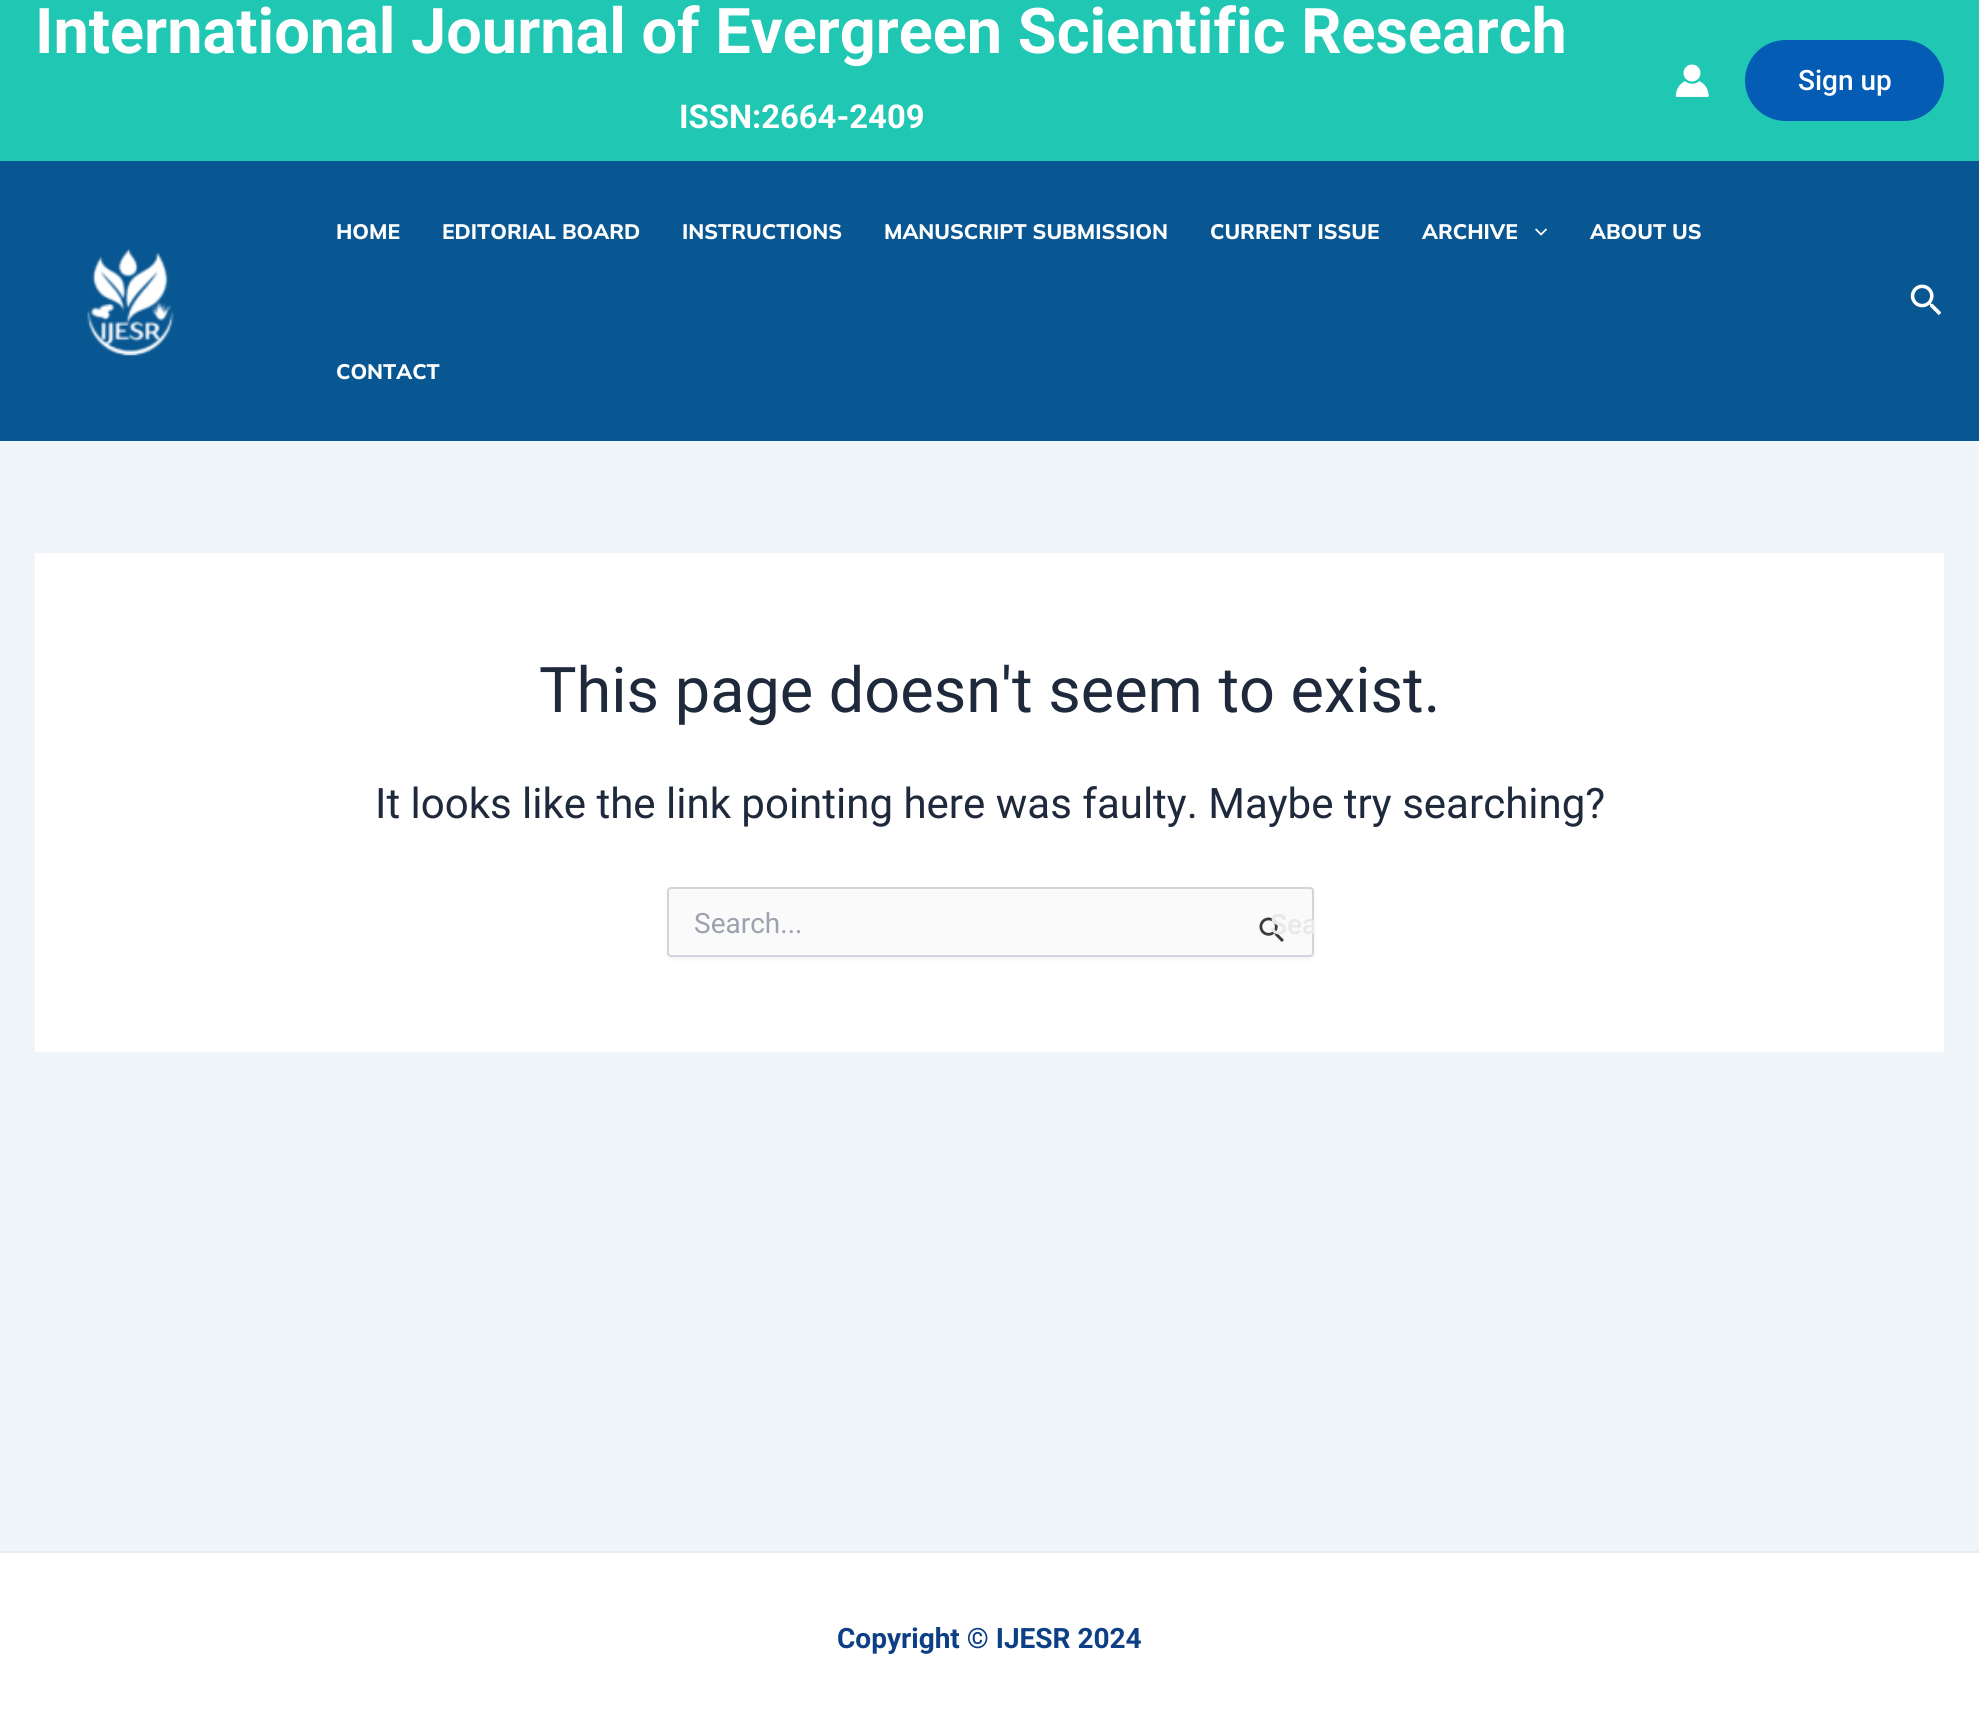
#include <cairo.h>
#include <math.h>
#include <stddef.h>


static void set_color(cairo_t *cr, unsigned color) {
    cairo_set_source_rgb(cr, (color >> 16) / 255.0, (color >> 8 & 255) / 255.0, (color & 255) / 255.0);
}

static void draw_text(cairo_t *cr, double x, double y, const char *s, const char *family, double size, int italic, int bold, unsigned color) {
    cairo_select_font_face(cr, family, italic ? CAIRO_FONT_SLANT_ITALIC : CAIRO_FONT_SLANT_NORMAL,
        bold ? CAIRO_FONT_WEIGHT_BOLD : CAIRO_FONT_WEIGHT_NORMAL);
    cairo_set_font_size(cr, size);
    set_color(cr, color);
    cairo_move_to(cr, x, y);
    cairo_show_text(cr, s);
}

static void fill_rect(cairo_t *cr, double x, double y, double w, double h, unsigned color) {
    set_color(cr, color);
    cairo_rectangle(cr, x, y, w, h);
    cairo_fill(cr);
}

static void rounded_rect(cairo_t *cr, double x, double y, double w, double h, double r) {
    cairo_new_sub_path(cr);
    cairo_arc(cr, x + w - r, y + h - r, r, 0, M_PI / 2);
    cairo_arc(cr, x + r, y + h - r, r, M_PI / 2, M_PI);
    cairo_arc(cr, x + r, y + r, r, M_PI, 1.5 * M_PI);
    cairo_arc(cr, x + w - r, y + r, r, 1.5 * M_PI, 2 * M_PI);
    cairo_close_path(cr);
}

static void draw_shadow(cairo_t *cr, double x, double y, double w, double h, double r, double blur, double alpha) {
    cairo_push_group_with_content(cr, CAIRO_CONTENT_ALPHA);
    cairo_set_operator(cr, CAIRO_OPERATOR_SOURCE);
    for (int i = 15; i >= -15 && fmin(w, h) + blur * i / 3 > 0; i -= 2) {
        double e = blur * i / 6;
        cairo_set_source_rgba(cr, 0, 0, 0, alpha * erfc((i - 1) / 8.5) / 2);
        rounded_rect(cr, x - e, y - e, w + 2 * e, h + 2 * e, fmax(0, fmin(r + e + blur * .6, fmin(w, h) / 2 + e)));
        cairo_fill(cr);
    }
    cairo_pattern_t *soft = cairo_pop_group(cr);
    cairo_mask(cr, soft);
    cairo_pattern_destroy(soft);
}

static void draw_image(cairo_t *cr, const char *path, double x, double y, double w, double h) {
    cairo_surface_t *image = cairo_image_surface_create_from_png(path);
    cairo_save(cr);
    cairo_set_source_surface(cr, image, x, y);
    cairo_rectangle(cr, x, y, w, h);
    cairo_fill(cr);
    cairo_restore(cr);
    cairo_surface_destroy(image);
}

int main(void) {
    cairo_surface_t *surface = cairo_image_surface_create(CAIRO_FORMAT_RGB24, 1979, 1727);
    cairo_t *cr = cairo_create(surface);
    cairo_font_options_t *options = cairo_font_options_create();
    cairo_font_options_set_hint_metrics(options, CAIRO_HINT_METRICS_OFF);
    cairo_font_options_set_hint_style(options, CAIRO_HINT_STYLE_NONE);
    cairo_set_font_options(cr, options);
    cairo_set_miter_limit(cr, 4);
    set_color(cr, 0xF0F5FA);
    cairo_paint(cr);
    fill_rect(cr, 0, 0, 1979, 161, 0x20C7B3);
    draw_text(cr, 35, 53, "International Journal of Evergreen Scientific Research", "Roboto", 63, 0, 1, 0xFFFFFF);
    draw_text(cr, 679, 128, "ISSN:2664-2409", "Roboto", 32.75, 0, 1, 0xFFFFFF);
    draw_image(cr, "assets/img1.png", 1675, 64, 34, 33);
    set_color(cr, 0x045CB4);
    rounded_rect(cr, 1745, 40, 199, 81, 40.5);
    cairo_fill(cr);
    draw_text(cr, 1798, 90, "Sign up", "Roboto Medium", 28, 0, 0, 0xFFFFFF);
    fill_rect(cr, 0, 161, 1979, 280, 0x095792);
    draw_image(cr, "assets/img2.png", 87, 248, 87, 108);
    draw_text(cr, 336, 239, "HOME", "Mulish ExtraLight", 21, 0, 0, 0xFFFFFF);
    draw_text(cr, 442, 239, "EDITORIAL BOARD", "Mulish ExtraLight", 21, 0, 0, 0xFFFFFF);
    draw_text(cr, 682, 239, "INSTRUCTIONS", "Mulish ExtraLight", 21, 0, 0, 0xFFFFFF);
    draw_text(cr, 884, 239, "MANUSCRIPT SUBMISSION", "Mulish ExtraLight", 21, 0, 0, 0xFFFFFF);
    draw_text(cr, 1210, 239, "CURRENT ISSUE", "Mulish ExtraLight", 21, 0, 0, 0xFFFFFF);
    draw_text(cr, 1422, 239, "ARCHIVE", "Mulish ExtraLight", 21, 0, 0, 0xFFFFFF);
    draw_image(cr, "assets/img3.png", 1535, 228, 12, 8);
    draw_text(cr, 1590, 239, "ABOUT US", "Mulish ExtraLight", 21, 0, 0, 0xFFFFFF);
    draw_text(cr, 336, 379, "CONTACT", "Mulish ExtraLight", 21, 0, 0, 0xFFFFFF);
    draw_image(cr, "assets/img4.png", 1910, 284, 31, 32);
    fill_rect(cr, 35, 553, 1909, 499, 0xFFFFFF);
    draw_text(cr, 539, 712, "This page doesn't seem to exist.", "Roboto", 63, 0, 0, 0x1E293B);
    draw_text(cr, 375, 818, "It looks like the link pointing here was faulty. Maybe try searching?", "Roboto", 42, 0, 0, 0x1E293B);
    set_color(cr, 0x000000);
    draw_shadow(cr, 667, 889, 647, 70, 4, 2, 0.05);
    set_color(cr, 0xFAFAFA);
    rounded_rect(cr, 668, 888, 645, 68, 3);
    cairo_fill_preserve(cr);
    set_color(cr, 0xD1D5DB);
    cairo_stroke(cr);
    draw_text(cr, 694, 933, "Search...", "Roboto", 28, 0, 0, 0x9CA3AF);
    draw_image(cr, "assets/img5.png", 1259, 917, 25, 25);
    cairo_save(cr);
    rounded_rect(cr, 1236, 887, 78, 74, 4);
    cairo_clip(cr);
    draw_text(cr, 1270, 934, "Sea", "Roboto Medium", 28, 0, 0, 0xE7E8E8);
    cairo_restore(cr);
    fill_rect(cr, 0, 1553, 1979, 174, 0xFFFFFF);
    fill_rect(cr, 0, 1551, 1979, 2, 0xEAEAEA);
    draw_text(cr, 837, 1648, "Copyright © IJESR 2024", "Roboto", 28, 0, 1, 0x0C3F85);
    cairo_surface_write_to_png(surface, "output.png");
    cairo_font_options_destroy(options);
    cairo_destroy(cr);
    cairo_surface_destroy(surface);
    return 0;
}
